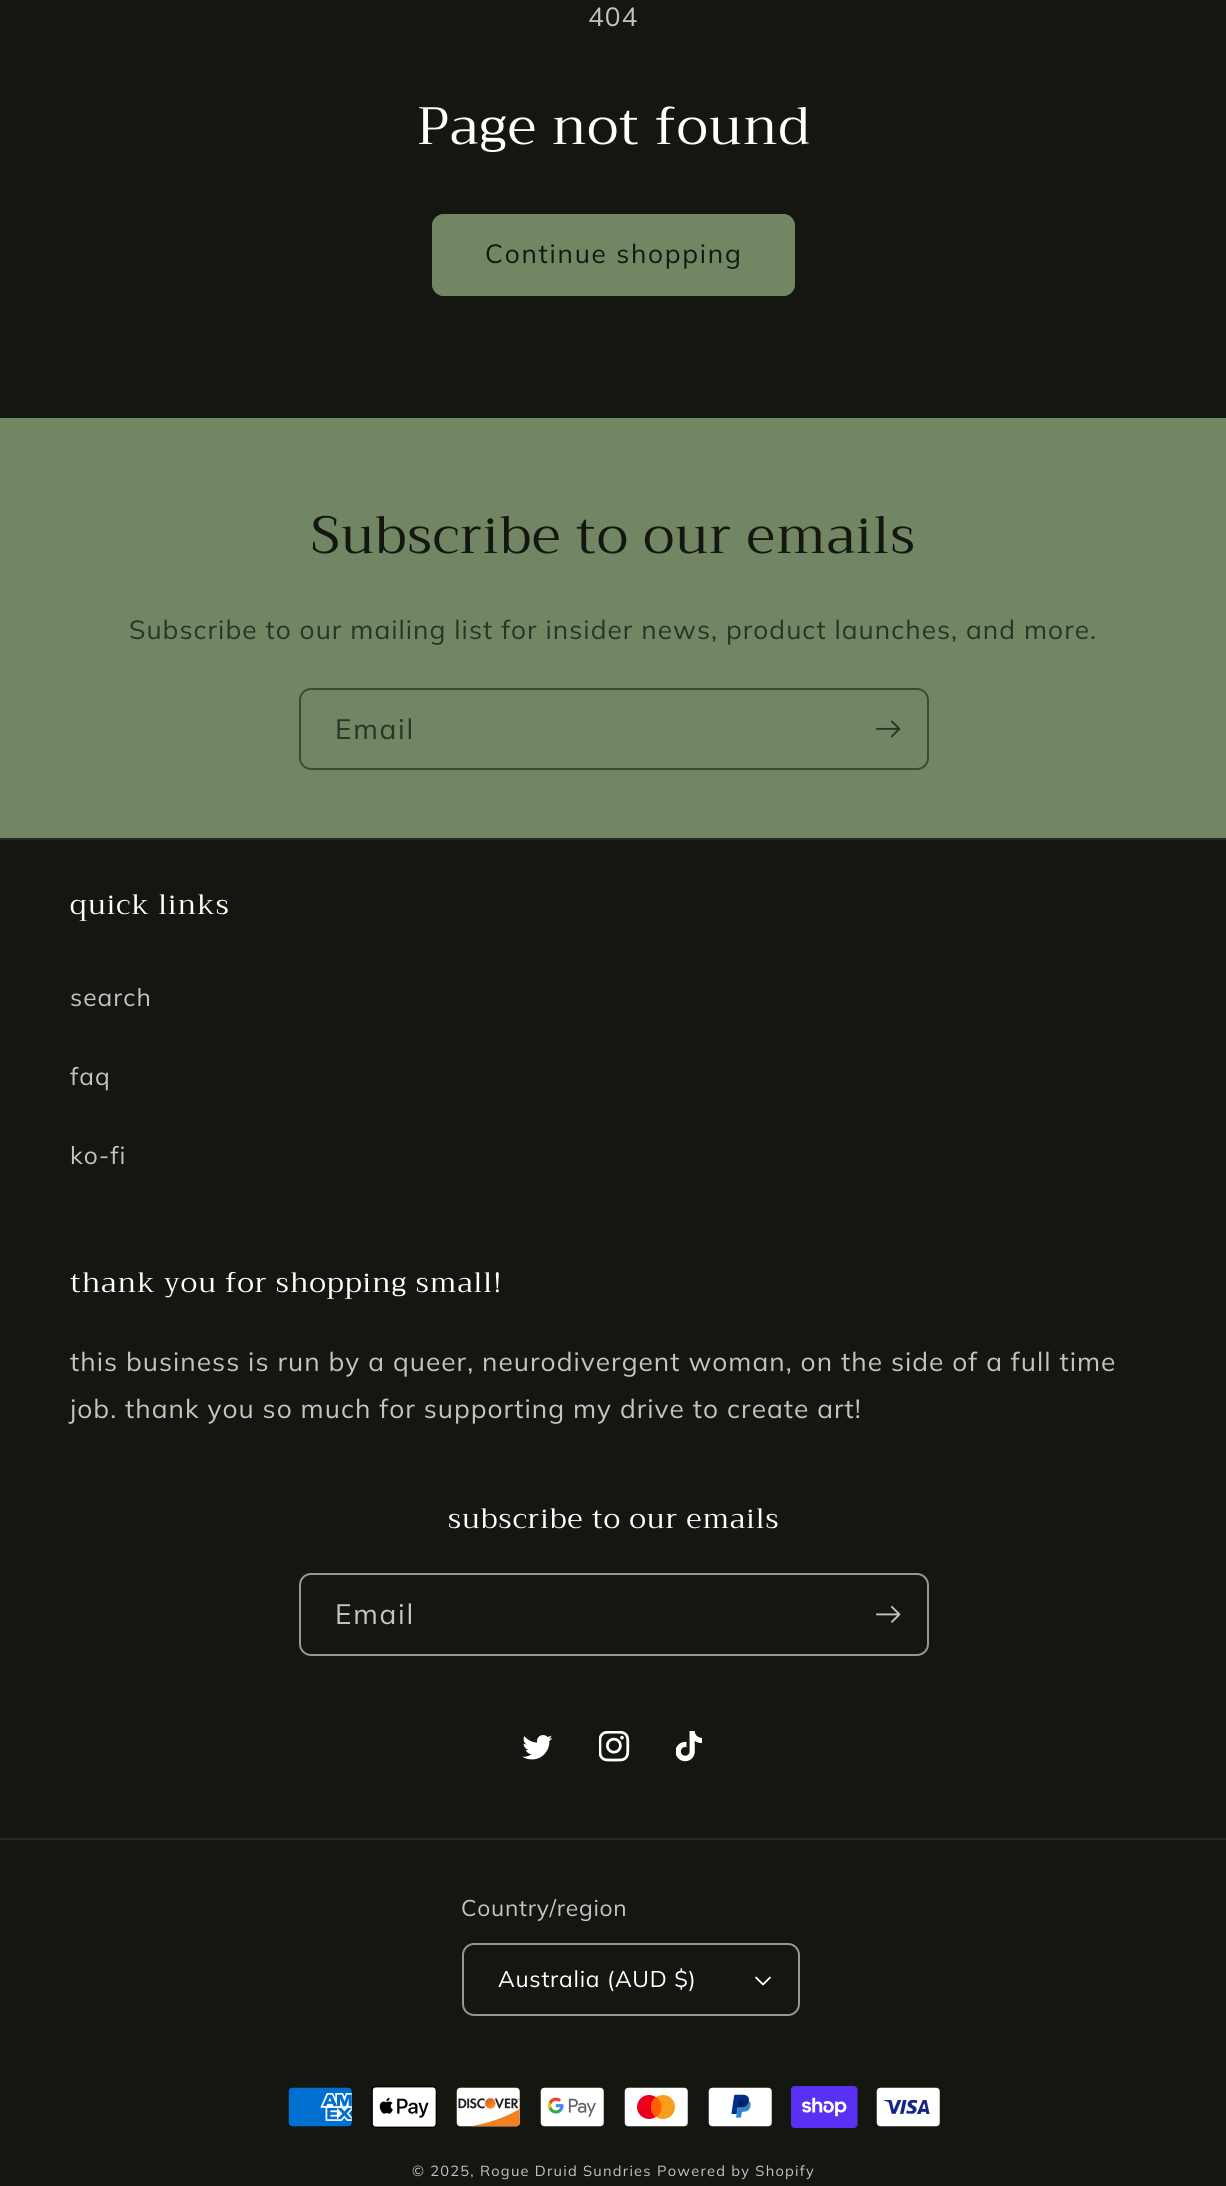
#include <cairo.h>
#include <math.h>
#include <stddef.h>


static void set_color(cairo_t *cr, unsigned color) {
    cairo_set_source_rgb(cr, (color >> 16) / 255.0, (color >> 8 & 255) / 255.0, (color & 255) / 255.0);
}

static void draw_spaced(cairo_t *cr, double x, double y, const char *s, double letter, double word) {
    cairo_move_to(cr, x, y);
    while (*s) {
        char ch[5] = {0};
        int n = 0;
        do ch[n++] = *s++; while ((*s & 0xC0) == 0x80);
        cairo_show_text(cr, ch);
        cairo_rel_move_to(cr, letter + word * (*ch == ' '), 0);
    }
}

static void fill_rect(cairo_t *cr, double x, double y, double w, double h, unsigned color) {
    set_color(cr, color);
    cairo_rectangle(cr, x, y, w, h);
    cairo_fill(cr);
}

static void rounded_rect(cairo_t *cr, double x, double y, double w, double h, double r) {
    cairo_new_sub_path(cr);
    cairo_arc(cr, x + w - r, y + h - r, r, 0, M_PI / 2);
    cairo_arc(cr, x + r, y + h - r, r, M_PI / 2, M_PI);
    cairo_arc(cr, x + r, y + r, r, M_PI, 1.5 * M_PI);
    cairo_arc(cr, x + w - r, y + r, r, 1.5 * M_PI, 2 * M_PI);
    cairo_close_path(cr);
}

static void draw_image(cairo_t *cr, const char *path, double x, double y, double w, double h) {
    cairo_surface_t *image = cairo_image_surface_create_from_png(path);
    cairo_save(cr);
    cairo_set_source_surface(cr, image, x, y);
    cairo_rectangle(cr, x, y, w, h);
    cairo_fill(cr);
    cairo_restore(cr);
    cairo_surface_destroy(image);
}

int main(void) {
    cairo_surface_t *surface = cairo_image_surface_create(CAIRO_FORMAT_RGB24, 1226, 2186);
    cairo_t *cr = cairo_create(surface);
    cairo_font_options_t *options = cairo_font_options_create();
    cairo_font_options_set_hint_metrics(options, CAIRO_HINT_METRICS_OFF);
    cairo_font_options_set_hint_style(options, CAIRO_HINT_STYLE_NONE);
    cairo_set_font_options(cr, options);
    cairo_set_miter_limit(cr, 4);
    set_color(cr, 0x131710);
    cairo_paint(cr);
    cairo_select_font_face(cr, "Muli", CAIRO_FONT_SLANT_NORMAL, CAIRO_FONT_WEIGHT_NORMAL);
    cairo_set_font_size(cr, 26.25);
    set_color(cr, 0xC4C5C3);
    draw_spaced(cr, 588, 26, "404", 1.05, 0);
    cairo_select_font_face(cr, "Trirong", CAIRO_FONT_SLANT_NORMAL, CAIRO_FONT_WEIGHT_NORMAL);
    cairo_set_font_size(cr, 52.5);
    set_color(cr, 0xFFFFFF);
    draw_spaced(cr, 417, 144, "Page not found", 1.05, 0);
    set_color(cr, 0x728663);
    rounded_rect(cr, 432, 214, 363, 82, 12);
    cairo_fill(cr);
    rounded_rect(cr, 433, 215, 361, 80, 11);
    cairo_stroke(cr);
    cairo_select_font_face(cr, "Muli", CAIRO_FONT_SLANT_NORMAL, CAIRO_FONT_WEIGHT_NORMAL);
    cairo_set_font_size(cr, 26.25);
    set_color(cr, 0x131710);
    draw_spaced(cr, 485, 263, "Continue shopping", 1.75, 0);
    fill_rect(cr, 0, 418, 1226, 420, 0x728663);
    cairo_select_font_face(cr, "Trirong", CAIRO_FONT_SLANT_NORMAL, CAIRO_FONT_WEIGHT_NORMAL);
    cairo_set_font_size(cr, 52.5);
    set_color(cr, 0x131710);
    draw_spaced(cr, 311, 553, "Subscribe to our emails", 1.05, 0);
    cairo_select_font_face(cr, "Muli", CAIRO_FONT_SLANT_NORMAL, CAIRO_FONT_WEIGHT_NORMAL);
    cairo_set_font_size(cr, 26.25);
    set_color(cr, 0x2B3325);
    draw_spaced(cr, 129, 639, "Subscribe to our mailing list for insider news, product launches, and more.", 1.05, 0);
    rounded_rect(cr, 300, 689, 628, 80, 11);
    set_color(cr, 0x3E4935);
    cairo_stroke(cr);
    cairo_set_font_size(cr, 28);
    set_color(cr, 0x2B3325);
    draw_spaced(cr, 335, 739, "Email", 1.75, 0);
    draw_image(cr, "assets/img1.png", 876, 720, 25, 18);
    fill_rect(cr, 0, 838, 1226, 2, 0x262A23);
    cairo_select_font_face(cr, "Trirong", CAIRO_FONT_SLANT_NORMAL, CAIRO_FONT_WEIGHT_NORMAL);
    set_color(cr, 0xFFFFFF);
    draw_spaced(cr, 70, 914, "quick links", 1.05, 0);
    cairo_select_font_face(cr, "Muli", CAIRO_FONT_SLANT_NORMAL, CAIRO_FONT_WEIGHT_NORMAL);
    cairo_set_font_size(cr, 24.5);
    set_color(cr, 0xC4C5C3);
    draw_spaced(cr, 70, 1006, "search", 1.05, 0);
    draw_spaced(cr, 70, 1085, "faq", 1.05, 0);
    draw_spaced(cr, 70, 1164, "ko-fi", 1.05, 0);
    cairo_select_font_face(cr, "Trirong", CAIRO_FONT_SLANT_NORMAL, CAIRO_FONT_WEIGHT_NORMAL);
    cairo_set_font_size(cr, 28);
    set_color(cr, 0xFFFFFF);
    draw_spaced(cr, 70, 1292, "thank you for shopping small!", 1.05, 0);
    cairo_select_font_face(cr, "Muli", CAIRO_FONT_SLANT_NORMAL, CAIRO_FONT_WEIGHT_NORMAL);
    cairo_set_font_size(cr, 26.25);
    set_color(cr, 0xC4C5C3);
    draw_spaced(cr, 70, 1371, "this business is run by a queer, neurodivergent woman, on the side of a full time", 1.05, 0);
    draw_spaced(cr, 70, 1418, "job. thank you so much for supporting my drive to create art!", 1.05, 0);
    cairo_select_font_face(cr, "Trirong", CAIRO_FONT_SLANT_NORMAL, CAIRO_FONT_WEIGHT_NORMAL);
    cairo_set_font_size(cr, 28);
    set_color(cr, 0xFFFFFF);
    draw_spaced(cr, 448, 1528, "subscribe to our emails", 1.05, 0);
    rounded_rect(cr, 300, 1574, 628, 81, 11);
    set_color(cr, 0x959793);
    cairo_stroke(cr);
    cairo_select_font_face(cr, "Muli", CAIRO_FONT_SLANT_NORMAL, CAIRO_FONT_WEIGHT_NORMAL);
    set_color(cr, 0xC4C5C3);
    draw_spaced(cr, 335, 1624, "Email", 1.75, 0);
    draw_image(cr, "assets/img2.png", 876, 1606, 25, 17);
    draw_image(cr, "assets/img3.png", 522, 1735, 31, 25);
    draw_image(cr, "assets/img4.png", 599, 1731, 31, 31);
    draw_image(cr, "assets/img5.png", 676, 1731, 26, 31);
    fill_rect(cr, 0, 1838, 1226, 2, 0x262A23);
    cairo_set_font_size(cr, 22.75);
    set_color(cr, 0xC4C5C3);
    draw_spaced(cr, 461, 1916, "Country/region", 0.75, 0);
    draw_image(cr, "assets/img6.png", 755, 1976, 16, 10);
    rounded_rect(cr, 463, 1944, 336, 71, 11);
    set_color(cr, 0x959793);
    cairo_stroke(cr);
    set_color(cr, 0xFFFFFF);
    draw_spaced(cr, 498, 1987, "Australia (AUD $)", 0.75, 0);
    draw_image(cr, "assets/img7.png", 288, 2087, 64, 40);
    draw_image(cr, "assets/img8.png", 371, 2086, 66, 42);
    draw_image(cr, "assets/img9.png", 456, 2087, 64, 40);
    draw_image(cr, "assets/img10.png", 540, 2087, 64, 40);
    draw_image(cr, "assets/img11.png", 624, 2087, 64, 40);
    draw_image(cr, "assets/img12.png", 708, 2087, 64, 40);
    draw_image(cr, "assets/img13.png", 791, 2086, 67, 42);
    draw_image(cr, "assets/img14.png", 876, 2087, 64, 40);
    cairo_set_font_size(cr, 14.6);
    set_color(cr, 0xC4C5C3);
    draw_spaced(cr, 412, 2176, "© 2025, Rogue Druid Sundries", 1.25, 0);
    draw_spaced(cr, 657, 2176, "Powered by Shopify", 1.25, 0);
    cairo_surface_write_to_png(surface, "output.png");
    cairo_font_options_destroy(options);
    cairo_destroy(cr);
    cairo_surface_destroy(surface);
    return 0;
}
